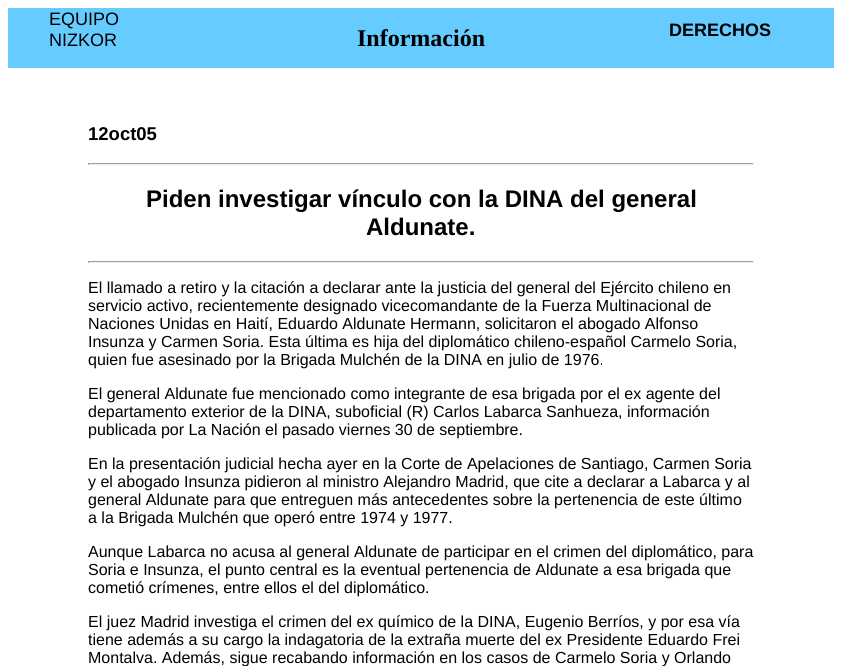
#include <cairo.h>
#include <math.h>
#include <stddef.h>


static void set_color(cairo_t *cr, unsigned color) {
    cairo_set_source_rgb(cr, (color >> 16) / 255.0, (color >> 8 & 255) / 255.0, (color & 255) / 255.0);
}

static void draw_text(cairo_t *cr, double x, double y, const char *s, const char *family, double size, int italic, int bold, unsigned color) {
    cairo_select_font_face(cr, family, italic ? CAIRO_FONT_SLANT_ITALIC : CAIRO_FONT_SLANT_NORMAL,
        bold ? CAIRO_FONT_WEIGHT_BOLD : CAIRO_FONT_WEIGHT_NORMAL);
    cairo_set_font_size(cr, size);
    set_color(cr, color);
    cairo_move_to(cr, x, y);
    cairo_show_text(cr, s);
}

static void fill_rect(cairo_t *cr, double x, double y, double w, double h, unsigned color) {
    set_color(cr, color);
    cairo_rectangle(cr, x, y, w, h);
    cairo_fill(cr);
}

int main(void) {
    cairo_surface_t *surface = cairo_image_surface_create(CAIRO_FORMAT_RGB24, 842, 666);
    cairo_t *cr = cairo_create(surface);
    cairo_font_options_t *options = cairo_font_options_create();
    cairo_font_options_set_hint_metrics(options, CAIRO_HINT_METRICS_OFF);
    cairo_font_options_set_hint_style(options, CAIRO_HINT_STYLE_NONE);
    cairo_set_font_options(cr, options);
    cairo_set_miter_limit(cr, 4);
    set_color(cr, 0xFFFFFF);
    cairo_paint(cr);
    fill_rect(cr, 8, 8, 826, 60, 0x66CCFF);
    draw_text(cr, 49, 25, "EQUIPO", "Liberation Sans", 18, 0, 0, 0x000000);
    draw_text(cr, 49, 46, "NIZKOR", "Liberation Sans", 18, 0, 0, 0x000000);
    draw_text(cr, 357, 46, "Información", "Liberation Serif", 24, 0, 1, 0x000000);
    draw_text(cr, 669, 36, "DERECHOS", "Liberation Sans", 18, 0, 1, 0x000000);
    draw_text(cr, 88, 140, "12oct05", "Liberation Sans", 18.5, 0, 1, 0x000000);
    fill_rect(cr, 88, 163, 666, 1, 0x9F9F9F);
    fill_rect(cr, 753, 163, 1, 2, 0xEEEEEE);
    fill_rect(cr, 88, 164, 666, 1, 0xEEEEEE);
    fill_rect(cr, 88, 163, 1, 2, 0x9F9F9F);
    draw_text(cr, 146, 207, "Piden investigar vínculo con la DINA del general", "Liberation Sans", 24, 0, 1, 0x000000);
    draw_text(cr, 366, 235, "Aldunate.", "Liberation Sans", 24, 0, 1, 0x000000);
    fill_rect(cr, 88, 261, 666, 1, 0x9F9F9F);
    fill_rect(cr, 753, 261, 1, 2, 0xEEEEEE);
    fill_rect(cr, 88, 262, 666, 1, 0xEEEEEE);
    fill_rect(cr, 88, 261, 1, 2, 0x9F9F9F);
    draw_text(cr, 88, 293, "El llamado a retiro y la citación a declarar ante la justicia del general del Ejército chileno en", "Liberation Sans", 16, 0, 0, 0x000000);
    draw_text(cr, 88, 311, "servicio activo, recientemente designado vicecomandante de la Fuerza Multinacional de", "Liberation Sans", 16, 0, 0, 0x000000);
    draw_text(cr, 88, 329, "Naciones Unidas en Haití, Eduardo Aldunate Hermann, solicitaron el abogado Alfonso", "Liberation Sans", 16, 0, 0, 0x000000);
    draw_text(cr, 88, 347, "Insunza y Carmen Soria. Esta última es hija del diplomático chileno-español Carmelo Soria,", "Liberation Sans", 16, 0, 0, 0x000000);
    draw_text(cr, 88, 365, "quien fue asesinado por la Brigada Mulchén de la DINA en julio de 1976.", "Liberation Sans", 16, 0, 0, 0x000000);
    draw_text(cr, 88, 399, "El general Aldunate fue mencionado como integrante de esa brigada por el ex agente del", "Liberation Sans", 16, 0, 0, 0x000000);
    draw_text(cr, 88, 417, "departamento exterior de la DINA, suboficial (R) Carlos Labarca Sanhueza, información", "Liberation Sans", 16, 0, 0, 0x000000);
    draw_text(cr, 88, 435, "publicada por La Nación el pasado viernes 30 de septiembre.", "Liberation Sans", 16, 0, 0, 0x000000);
    draw_text(cr, 88, 469, "En la presentación judicial hecha ayer en la Corte de Apelaciones de Santiago, Carmen Soria", "Liberation Sans", 16, 0, 0, 0x000000);
    draw_text(cr, 88, 487, "y el abogado Insunza pidieron al ministro Alejandro Madrid, que cite a declarar a Labarca y al", "Liberation Sans", 16, 0, 0, 0x000000);
    draw_text(cr, 88, 505, "general Aldunate para que entreguen más antecedentes sobre la pertenencia de este último", "Liberation Sans", 16, 0, 0, 0x000000);
    draw_text(cr, 88, 523, "a la Brigada Mulchén que operó entre 1974 y 1977.", "Liberation Sans", 16, 0, 0, 0x000000);
    draw_text(cr, 88, 557, "Aunque Labarca no acusa al general Aldunate de participar en el crimen del diplomático, para", "Liberation Sans", 16, 0, 0, 0x000000);
    draw_text(cr, 88, 575, "Soria e Insunza, el punto central es la eventual pertenencia de Aldunate a esa brigada que", "Liberation Sans", 16, 0, 0, 0x000000);
    draw_text(cr, 88, 593, "cometió crímenes, entre ellos el del diplomático.", "Liberation Sans", 16, 0, 0, 0x000000);
    draw_text(cr, 88, 627, "El juez Madrid investiga el crimen del ex químico de la DINA, Eugenio Berríos, y por esa vía", "Liberation Sans", 16, 0, 0, 0x000000);
    draw_text(cr, 88, 645, "tiene además a su cargo la indagatoria de la extraña muerte del ex Presidente Eduardo Frei", "Liberation Sans", 16, 0, 0, 0x000000);
    draw_text(cr, 88, 663, "Montalva. Además, sigue recabando información en los casos de Carmelo Soria y Orlando", "Liberation Sans", 16, 0, 0, 0x000000);
    cairo_surface_write_to_png(surface, "output.png");
    cairo_font_options_destroy(options);
    cairo_destroy(cr);
    cairo_surface_destroy(surface);
    return 0;
}
